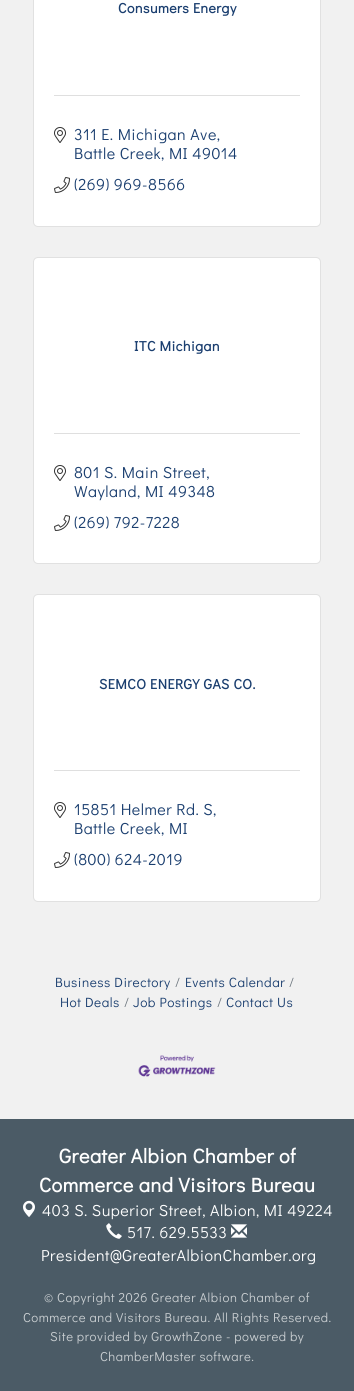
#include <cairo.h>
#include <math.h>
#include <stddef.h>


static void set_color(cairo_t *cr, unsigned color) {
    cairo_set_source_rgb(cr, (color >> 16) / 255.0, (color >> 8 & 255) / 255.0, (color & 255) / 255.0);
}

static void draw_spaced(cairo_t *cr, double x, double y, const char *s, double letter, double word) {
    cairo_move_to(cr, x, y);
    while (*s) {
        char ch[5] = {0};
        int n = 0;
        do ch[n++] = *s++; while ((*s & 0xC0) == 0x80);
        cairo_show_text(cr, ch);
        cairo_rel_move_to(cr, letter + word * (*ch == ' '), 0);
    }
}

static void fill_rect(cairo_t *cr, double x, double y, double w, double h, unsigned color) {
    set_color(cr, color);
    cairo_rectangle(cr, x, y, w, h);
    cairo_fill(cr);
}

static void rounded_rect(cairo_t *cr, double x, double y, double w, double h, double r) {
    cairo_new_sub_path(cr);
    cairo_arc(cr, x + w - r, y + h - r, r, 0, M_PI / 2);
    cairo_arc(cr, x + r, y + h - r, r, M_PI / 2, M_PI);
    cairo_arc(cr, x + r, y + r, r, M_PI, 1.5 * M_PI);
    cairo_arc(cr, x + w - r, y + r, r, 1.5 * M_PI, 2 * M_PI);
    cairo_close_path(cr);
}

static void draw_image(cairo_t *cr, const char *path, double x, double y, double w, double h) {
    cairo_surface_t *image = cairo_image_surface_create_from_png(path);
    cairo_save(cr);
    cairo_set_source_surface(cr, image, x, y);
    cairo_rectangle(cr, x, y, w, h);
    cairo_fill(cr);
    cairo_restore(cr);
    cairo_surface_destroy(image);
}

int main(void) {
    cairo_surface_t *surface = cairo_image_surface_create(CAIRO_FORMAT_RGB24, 354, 1391);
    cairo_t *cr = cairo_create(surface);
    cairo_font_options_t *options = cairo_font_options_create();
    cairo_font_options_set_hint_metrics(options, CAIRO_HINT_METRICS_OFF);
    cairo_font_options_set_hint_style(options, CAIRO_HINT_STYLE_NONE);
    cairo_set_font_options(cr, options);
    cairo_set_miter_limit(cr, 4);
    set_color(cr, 0xFFFFFF);
    cairo_paint(cr);
    set_color(cr, 0xF1F1F1);
    cairo_new_path(cr);
    cairo_move_to(cr, 0, -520);
    cairo_line_to(cr, 354, -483);
    cairo_line_to(cr, 354, 1280);
    cairo_line_to(cr, 0, 1242);
    cairo_close_path(cr);
    cairo_fill(cr);
    set_color(cr, 0xFFFFFF);
    rounded_rect(cr, 33, -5, 288, 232, 5);
    cairo_fill(cr);
    rounded_rect(cr, 33.5, -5.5, 287, 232, 4.5);
    cairo_set_source_rgba(cr, 0, 0, 0, 0.12);
    cairo_set_line_width(cr, 1);
    cairo_stroke(cr);
    cairo_select_font_face(cr, "Didact Gothic", CAIRO_FONT_SLANT_NORMAL, CAIRO_FONT_WEIGHT_BOLD);
    cairo_set_font_size(cr, 14);
    set_color(cr, 0x1A3E6F);
    draw_spaced(cr, 118, 13, "Consumers Energy", 0.5, 0);
    fill_rect(cr, 54, 95, 246, 1, 0xDFDFDF);
    draw_image(cr, "assets/img1.png", 54, 127, 12, 16);
    cairo_select_font_face(cr, "Didact Gothic", CAIRO_FONT_SLANT_NORMAL, CAIRO_FONT_WEIGHT_NORMAL);
    cairo_set_font_size(cr, 16);
    set_color(cr, 0x1A3E6F);
    draw_spaced(cr, 74, 140, "311 E. Michigan Ave,", 0.5, 0);
    draw_spaced(cr, 74, 159, "Battle Creek, MI 49014", 0.5, 0);
    draw_image(cr, "assets/img2.png", 54, 177, 16, 16);
    draw_spaced(cr, 74, 190, "(269) 969-8566", 0.5, 0);
    set_color(cr, 0xFFFFFF);
    rounded_rect(cr, 33, 257, 288, 307, 5);
    cairo_fill(cr);
    rounded_rect(cr, 33.5, 257.5, 287, 306, 4.5);
    cairo_set_source_rgba(cr, 0, 0, 0, 0.12);
    cairo_stroke(cr);
    cairo_select_font_face(cr, "Didact Gothic", CAIRO_FONT_SLANT_NORMAL, CAIRO_FONT_WEIGHT_BOLD);
    cairo_set_font_size(cr, 14);
    set_color(cr, 0x1A3E6F);
    draw_spaced(cr, 134, 351, "ITC Michigan", 0.5, 0);
    fill_rect(cr, 54, 433, 246, 1, 0xDFDFDF);
    draw_image(cr, "assets/img1.png", 54, 465, 12, 16);
    cairo_select_font_face(cr, "Didact Gothic", CAIRO_FONT_SLANT_NORMAL, CAIRO_FONT_WEIGHT_NORMAL);
    cairo_set_font_size(cr, 16);
    set_color(cr, 0x1A3E6F);
    draw_spaced(cr, 74, 478, "801 S. Main Street,", 0.5, 0);
    draw_spaced(cr, 74, 497, "Wayland, MI 49348", 0.5, 0);
    draw_image(cr, "assets/img2.png", 54, 515, 16, 16);
    draw_spaced(cr, 74, 528, "(269) 792-7228", 0.5, 0);
    set_color(cr, 0xFFFFFF);
    rounded_rect(cr, 33, 594, 288, 308, 5);
    cairo_fill(cr);
    rounded_rect(cr, 33.5, 594.5, 287, 307, 4.5);
    cairo_set_source_rgba(cr, 0, 0, 0, 0.12);
    cairo_stroke(cr);
    cairo_select_font_face(cr, "Didact Gothic", CAIRO_FONT_SLANT_NORMAL, CAIRO_FONT_WEIGHT_BOLD);
    cairo_set_font_size(cr, 14);
    set_color(cr, 0x1A3E6F);
    draw_spaced(cr, 99, 689, "SEMCO ENERGY GAS CO.", 0.5, 0);
    fill_rect(cr, 54, 770, 246, 1, 0xDFDFDF);
    draw_image(cr, "assets/img1.png", 54, 802, 12, 16);
    cairo_select_font_face(cr, "Didact Gothic", CAIRO_FONT_SLANT_NORMAL, CAIRO_FONT_WEIGHT_NORMAL);
    cairo_set_font_size(cr, 16);
    set_color(cr, 0x1A3E6F);
    draw_spaced(cr, 74, 815, "15851 Helmer Rd. S,", 0.5, 0);
    draw_spaced(cr, 74, 834, "Battle Creek, MI", 0.5, 0);
    draw_image(cr, "assets/img2.png", 54, 852, 16, 16);
    draw_spaced(cr, 74, 865, "(800) 624-2019", 0.5, 0);
    cairo_set_font_size(cr, 13.5);
    draw_spaced(cr, 55, 987, "Business Directory", 0.5, 0);
    set_color(cr, 0x6C757D);
    draw_spaced(cr, 289, 987, "/", 0.5, 0);
    set_color(cr, 0x1A3E6F);
    draw_spaced(cr, 60, 1007, "Hot Deals", 0.5, 0);
    set_color(cr, 0x6C757D);
    draw_spaced(cr, 175, 987, "/", 0.5, 0);
    set_color(cr, 0x1A3E6F);
    draw_spaced(cr, 185, 987, "Events Calendar", 0.5, 0);
    set_color(cr, 0x6C757D);
    draw_spaced(cr, 124, 1007, "/", 0.5, 0);
    set_color(cr, 0x1A3E6F);
    draw_spaced(cr, 133, 1007, "Job Postings", 0.5, 0);
    set_color(cr, 0x6C757D);
    draw_spaced(cr, 217, 1007, "/", 0.5, 0);
    set_color(cr, 0x1A3E6F);
    draw_spaced(cr, 226, 1007, "Contact Us", 0.5, 0);
    draw_image(cr, "assets/img3.png", 138, 1055, 78, 22);
    fill_rect(cr, 0, 1119, 354, 272, 0x4B5B66);
    cairo_select_font_face(cr, "Didact Gothic", CAIRO_FONT_SLANT_NORMAL, CAIRO_FONT_WEIGHT_BOLD);
    cairo_set_font_size(cr, 20);
    set_color(cr, 0xFFFFFF);
    draw_spaced(cr, 59, 1163, "Greater Albion Chamber of", 0.5, 0);
    draw_spaced(cr, 39, 1192, "Commerce and Visitors Bureau", 0.5, 0);
    draw_image(cr, "assets/img4.png", 23, 1200, 12, 18);
    cairo_select_font_face(cr, "Didact Gothic", CAIRO_FONT_SLANT_NORMAL, CAIRO_FONT_WEIGHT_NORMAL);
    cairo_set_font_size(cr, 16);
    draw_spaced(cr, 42, 1216, "403 S. Superior Street, Albion, MI 49224", 0.5, 0);
    draw_image(cr, "assets/img5.png", 106, 1223, 16, 16);
    draw_spaced(cr, 127, 1238, "517. 629.5533", 0.5, 0);
    draw_image(cr, "assets/img6.png", 231, 1224, 16, 14);
    draw_spaced(cr, 41, 1261, "President@GreaterAlbionChamber.org", 0.5, 0);
    cairo_set_font_size(cr, 13);
    set_color(cr, 0xC9CED1);
    draw_spaced(cr, 44, 1302, "© Copyright 2026 Greater Albion Chamber of", 0.5, 0);
    draw_spaced(cr, 23, 1322, "Commerce and Visitors Bureau. All Rights Reserved.", 0.5, 0);
    draw_spaced(cr, 50, 1341, "Site provided by GrowthZone - powered by", 0.5, 0);
    draw_spaced(cr, 100, 1361, "ChamberMaster software.", 0.5, 0);
    cairo_surface_write_to_png(surface, "output.png");
    cairo_font_options_destroy(options);
    cairo_destroy(cr);
    cairo_surface_destroy(surface);
    return 0;
}
